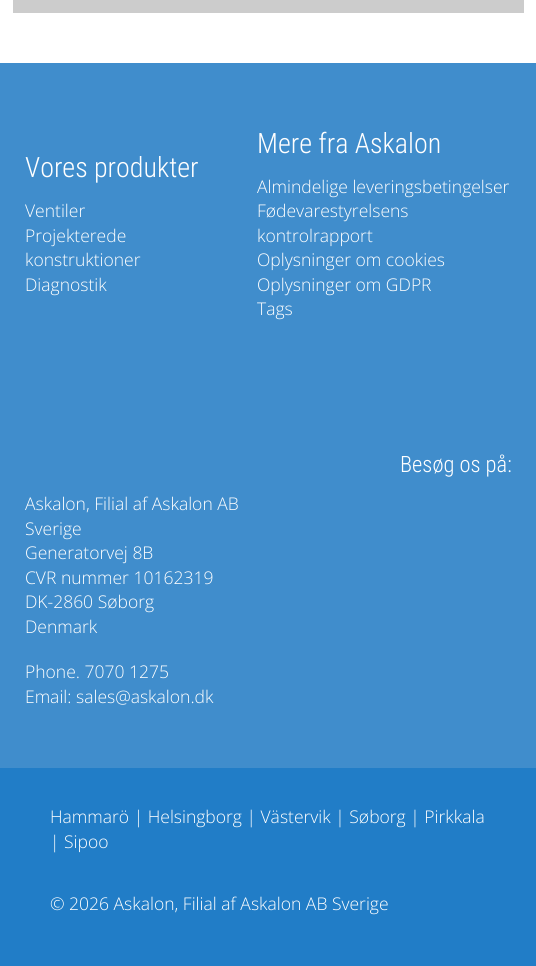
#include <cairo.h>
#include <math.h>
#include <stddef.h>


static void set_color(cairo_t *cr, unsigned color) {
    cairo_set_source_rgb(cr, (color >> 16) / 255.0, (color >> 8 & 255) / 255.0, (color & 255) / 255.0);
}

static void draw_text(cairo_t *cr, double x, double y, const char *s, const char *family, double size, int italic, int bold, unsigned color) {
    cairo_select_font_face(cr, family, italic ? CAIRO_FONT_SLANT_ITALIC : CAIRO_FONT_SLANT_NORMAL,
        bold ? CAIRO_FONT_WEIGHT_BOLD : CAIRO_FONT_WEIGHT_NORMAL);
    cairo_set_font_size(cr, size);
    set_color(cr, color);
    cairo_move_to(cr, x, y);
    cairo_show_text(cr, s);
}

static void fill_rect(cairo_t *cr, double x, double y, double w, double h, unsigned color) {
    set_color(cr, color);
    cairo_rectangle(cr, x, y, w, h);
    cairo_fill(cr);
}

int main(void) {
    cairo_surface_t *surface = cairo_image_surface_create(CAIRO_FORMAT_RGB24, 536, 966);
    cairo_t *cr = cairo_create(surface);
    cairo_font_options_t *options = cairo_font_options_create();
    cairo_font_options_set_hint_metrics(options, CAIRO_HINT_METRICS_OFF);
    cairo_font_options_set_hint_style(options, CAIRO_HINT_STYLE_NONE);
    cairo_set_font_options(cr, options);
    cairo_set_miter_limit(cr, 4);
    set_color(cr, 0xFFFFFF);
    cairo_paint(cr);
    fill_rect(cr, 13, 0, 511, 13, 0xCCCCCC);
    fill_rect(cr, 0, 63, 536, 705, 0x408DCC);
    draw_text(cr, 25, 177, "Vores produkter", "Roboto Condensed Light", 28, 0, 0, 0xFFFFFF);
    draw_text(cr, 25, 217, "Ventiler", "Open Sans Light", 17.5, 0, 0, 0xFFFFFF);
    draw_text(cr, 25, 242, "Projekterede", "Open Sans Light", 17.5, 0, 0, 0xFFFFFF);
    draw_text(cr, 25, 266, "konstruktioner", "Open Sans Light", 17.5, 0, 0, 0xFFFFFF);
    draw_text(cr, 25, 291, "Diagnostik", "Open Sans Light", 17.5, 0, 0, 0xFFFFFF);
    draw_text(cr, 257, 153, "Mere fra Askalon", "Roboto Condensed Light", 28, 0, 0, 0xFFFFFF);
    draw_text(cr, 257, 193, "Almindelige leveringsbetingelser", "Open Sans Light", 17.5, 0, 0, 0xFFFFFF);
    draw_text(cr, 257, 217, "Fødevarestyrelsens", "Open Sans Light", 17.5, 0, 0, 0xFFFFFF);
    draw_text(cr, 257, 242, "kontrolrapport", "Open Sans Light", 17.5, 0, 0, 0xFFFFFF);
    draw_text(cr, 257, 266, "Oplysninger om cookies", "Open Sans Light", 17.5, 0, 0, 0xFFFFFF);
    draw_text(cr, 257, 291, "Oplysninger om GDPR", "Open Sans Light", 17.5, 0, 0, 0xFFFFFF);
    draw_text(cr, 257, 315, "Tags", "Open Sans Light", 17.5, 0, 0, 0xFFFFFF);
    draw_text(cr, 400, 472, "Besøg os på:", "Roboto Condensed Light", 22.5, 0, 0, 0xFFFFFF);
    draw_text(cr, 25, 510, "Askalon, Filial af Askalon AB", "Open Sans Light", 17.5, 0, 0, 0xFFFFFF);
    draw_text(cr, 25, 535, "Sverige", "Open Sans Light", 17.5, 0, 0, 0xFFFFFF);
    draw_text(cr, 25, 559, "Generatorvej 8B", "Open Sans Light", 17.5, 0, 0, 0xFFFFFF);
    draw_text(cr, 25, 584, "CVR nummer 10162319", "Open Sans Light", 17.5, 0, 0, 0xFFFFFF);
    draw_text(cr, 25, 608, "DK-2860 Søborg", "Open Sans Light", 17.5, 0, 0, 0xFFFFFF);
    draw_text(cr, 25, 633, "Denmark", "Open Sans Light", 17.5, 0, 0, 0xFFFFFF);
    draw_text(cr, 25, 678, "Phone. 7070 1275", "Open Sans Light", 17.5, 0, 0, 0xFFFFFF);
    draw_text(cr, 25, 703, "Email: sales@askalon.dk", "Open Sans Light", 17.5, 0, 0, 0xFFFFFF);
    fill_rect(cr, 0, 768, 536, 198, 0x217DC7);
    draw_text(cr, 50, 823, "Hammarö | Helsingborg | Västervik | Søborg | Pirkkala", "Open Sans Light", 17.5, 0, 0, 0xFFFFFF);
    draw_text(cr, 50, 848, "| Sipoo", "Open Sans Light", 17.5, 0, 0, 0xFFFFFF);
    draw_text(cr, 50, 910, "© 2026 Askalon, Filial af Askalon AB Sverige", "Open Sans Light", 17.5, 0, 0, 0xFFFFFF);
    cairo_surface_write_to_png(surface, "output.png");
    cairo_font_options_destroy(options);
    cairo_destroy(cr);
    cairo_surface_destroy(surface);
    return 0;
}
